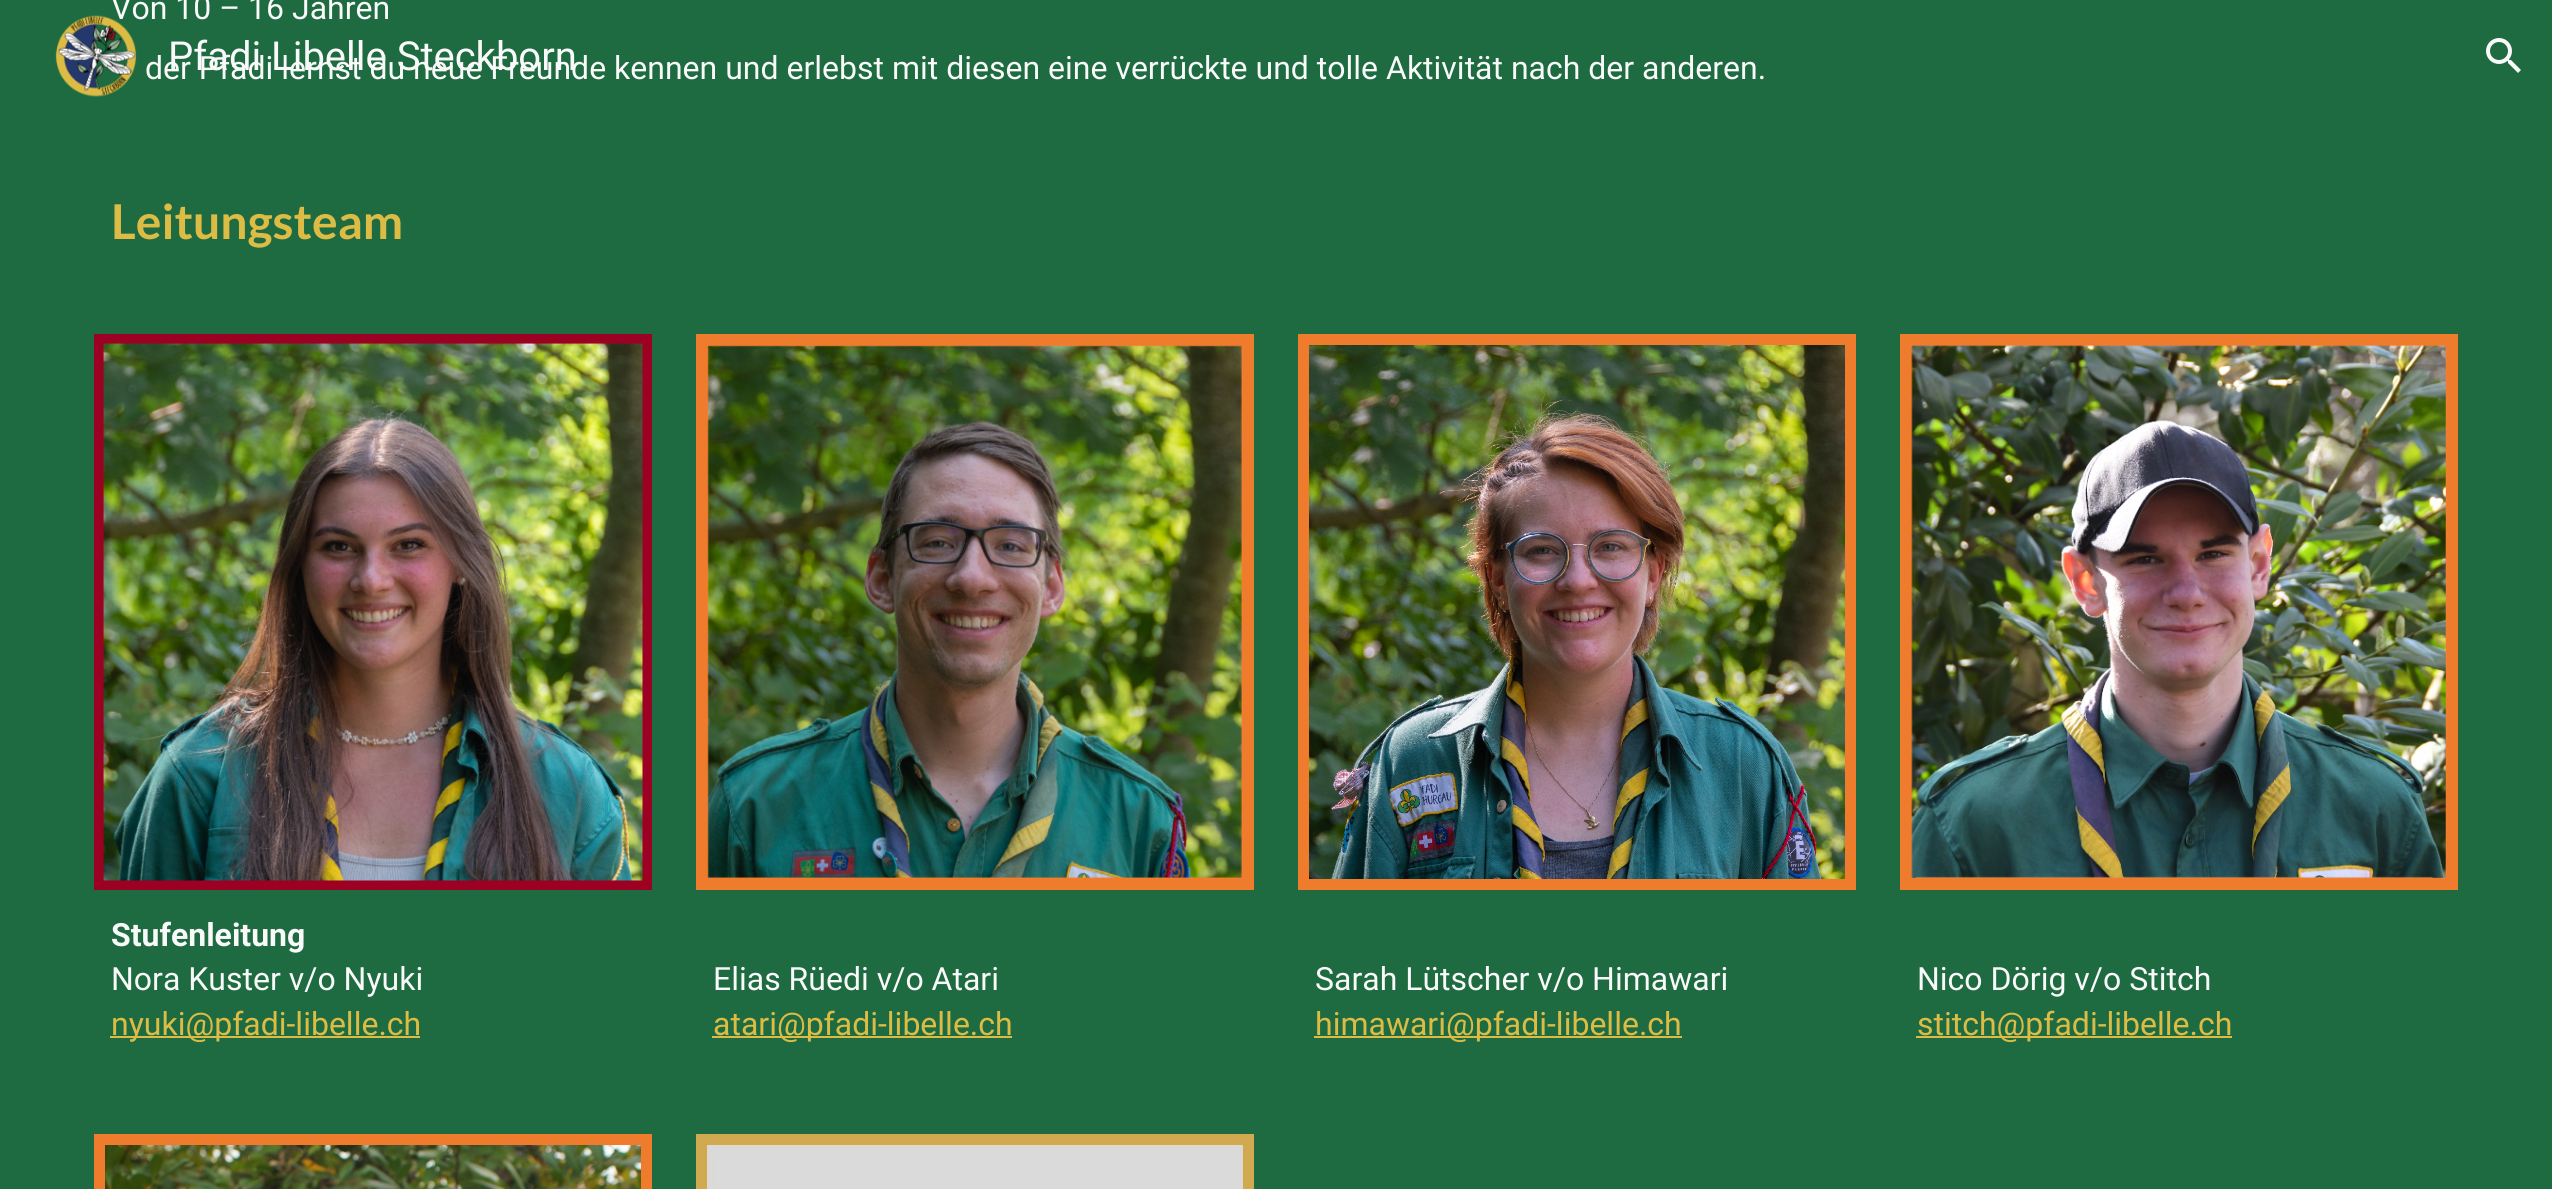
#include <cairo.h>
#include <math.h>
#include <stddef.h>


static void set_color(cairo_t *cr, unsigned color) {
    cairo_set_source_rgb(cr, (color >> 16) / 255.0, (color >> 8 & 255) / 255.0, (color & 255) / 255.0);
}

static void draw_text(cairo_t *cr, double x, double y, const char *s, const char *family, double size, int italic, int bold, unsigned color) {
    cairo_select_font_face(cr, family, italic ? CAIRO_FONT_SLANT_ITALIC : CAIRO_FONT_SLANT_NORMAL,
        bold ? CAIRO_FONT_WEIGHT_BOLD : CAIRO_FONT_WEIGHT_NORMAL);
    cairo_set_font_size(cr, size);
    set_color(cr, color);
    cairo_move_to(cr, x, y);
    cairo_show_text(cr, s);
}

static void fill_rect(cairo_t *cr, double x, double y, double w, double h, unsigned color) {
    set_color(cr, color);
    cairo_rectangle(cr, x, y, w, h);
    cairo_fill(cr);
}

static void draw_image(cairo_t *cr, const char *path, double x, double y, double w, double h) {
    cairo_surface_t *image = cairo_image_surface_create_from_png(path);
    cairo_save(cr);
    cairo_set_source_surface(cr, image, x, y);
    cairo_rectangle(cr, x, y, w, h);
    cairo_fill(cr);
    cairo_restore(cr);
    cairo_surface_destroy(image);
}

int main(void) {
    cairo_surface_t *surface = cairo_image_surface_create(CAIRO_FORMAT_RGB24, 2552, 1189);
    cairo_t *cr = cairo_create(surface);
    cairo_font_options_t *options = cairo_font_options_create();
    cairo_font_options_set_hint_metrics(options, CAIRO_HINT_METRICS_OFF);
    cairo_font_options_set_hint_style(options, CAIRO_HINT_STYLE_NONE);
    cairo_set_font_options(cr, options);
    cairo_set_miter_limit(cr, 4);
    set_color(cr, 0x1E6B42);
    cairo_paint(cr);
    draw_text(cr, 111, 19, "Von 10 – 16 Jahren", "Roboto", 32, 0, 0, 0xF9F9F9);
    draw_text(cr, 145, 79, "der Pfadi lernst du neue Freunde kennen und erlebst mit diesen eine verrückte und tolle Aktivität nach der anderen.", "Roboto", 32, 0, 0, 0xF9F9F9);
    draw_text(cr, 111, 239, "Leitungsteam", "Lato", 48, 0, 1, 0xDDBC45);
    draw_image(cr, "assets/img1.png", 94, 334, 558, 556);
    draw_text(cr, 111, 946, "Stufenleitung", "Roboto", 32, 0, 1, 0xF9F9F9);
    draw_text(cr, 111, 990, "Nora Kuster v/o Nyuki", "Roboto", 32, 0, 0, 0xF9F9F9);
    fill_rect(cr, 110, 1036, 310, 2, 0xDDBC45);
    draw_text(cr, 111, 1035, "nyuki@pfadi-libelle.ch", "Roboto", 32, 0, 0, 0xDDBC45);
    draw_image(cr, "assets/img2.png", 696, 334, 558, 556);
    draw_text(cr, 713, 990, "Elias Rüedi v/o Atari", "Roboto", 32, 0, 0, 0xF9F9F9);
    fill_rect(cr, 712, 1036, 300, 2, 0xDDBC45);
    draw_text(cr, 713, 1035, "atari@pfadi-libelle.ch", "Roboto", 32, 0, 0, 0xDDBC45);
    draw_image(cr, "assets/img3.png", 1298, 334, 558, 556);
    draw_text(cr, 1315, 990, "Sarah Lütscher v/o Himawari", "Roboto", 32, 0, 0, 0xF9F9F9);
    fill_rect(cr, 1314, 1036, 368, 2, 0xDDBC45);
    draw_text(cr, 1315, 1035, "himawari@pfadi-libelle.ch", "Roboto", 32, 0, 0, 0xDDBC45);
    draw_image(cr, "assets/img4.png", 1900, 334, 558, 556);
    draw_text(cr, 1917, 990, "Nico Dörig v/o Stitch", "Roboto", 32, 0, 0, 0xF9F9F9);
    fill_rect(cr, 1916, 1036, 316, 2, 0xDDBC45);
    draw_text(cr, 1917, 1035, "stitch@pfadi-libelle.ch", "Roboto", 32, 0, 0, 0xDDBC45);
    draw_image(cr, "assets/img5.png", 94, 1134, 558, 55);
    draw_image(cr, "assets/img6.png", 696, 1134, 558, 55);
    draw_image(cr, "assets/img7.png", 55, 15, 82, 82);
    draw_text(cr, 168, 70, "Pfadi Libelle Steckborn", "Roboto", 40, 0, 0, 0xF9F9F9);
    draw_image(cr, "assets/img8.png", 2486, 38, 35, 35);
    cairo_surface_write_to_png(surface, "output.png");
    cairo_font_options_destroy(options);
    cairo_destroy(cr);
    cairo_surface_destroy(surface);
    return 0;
}
